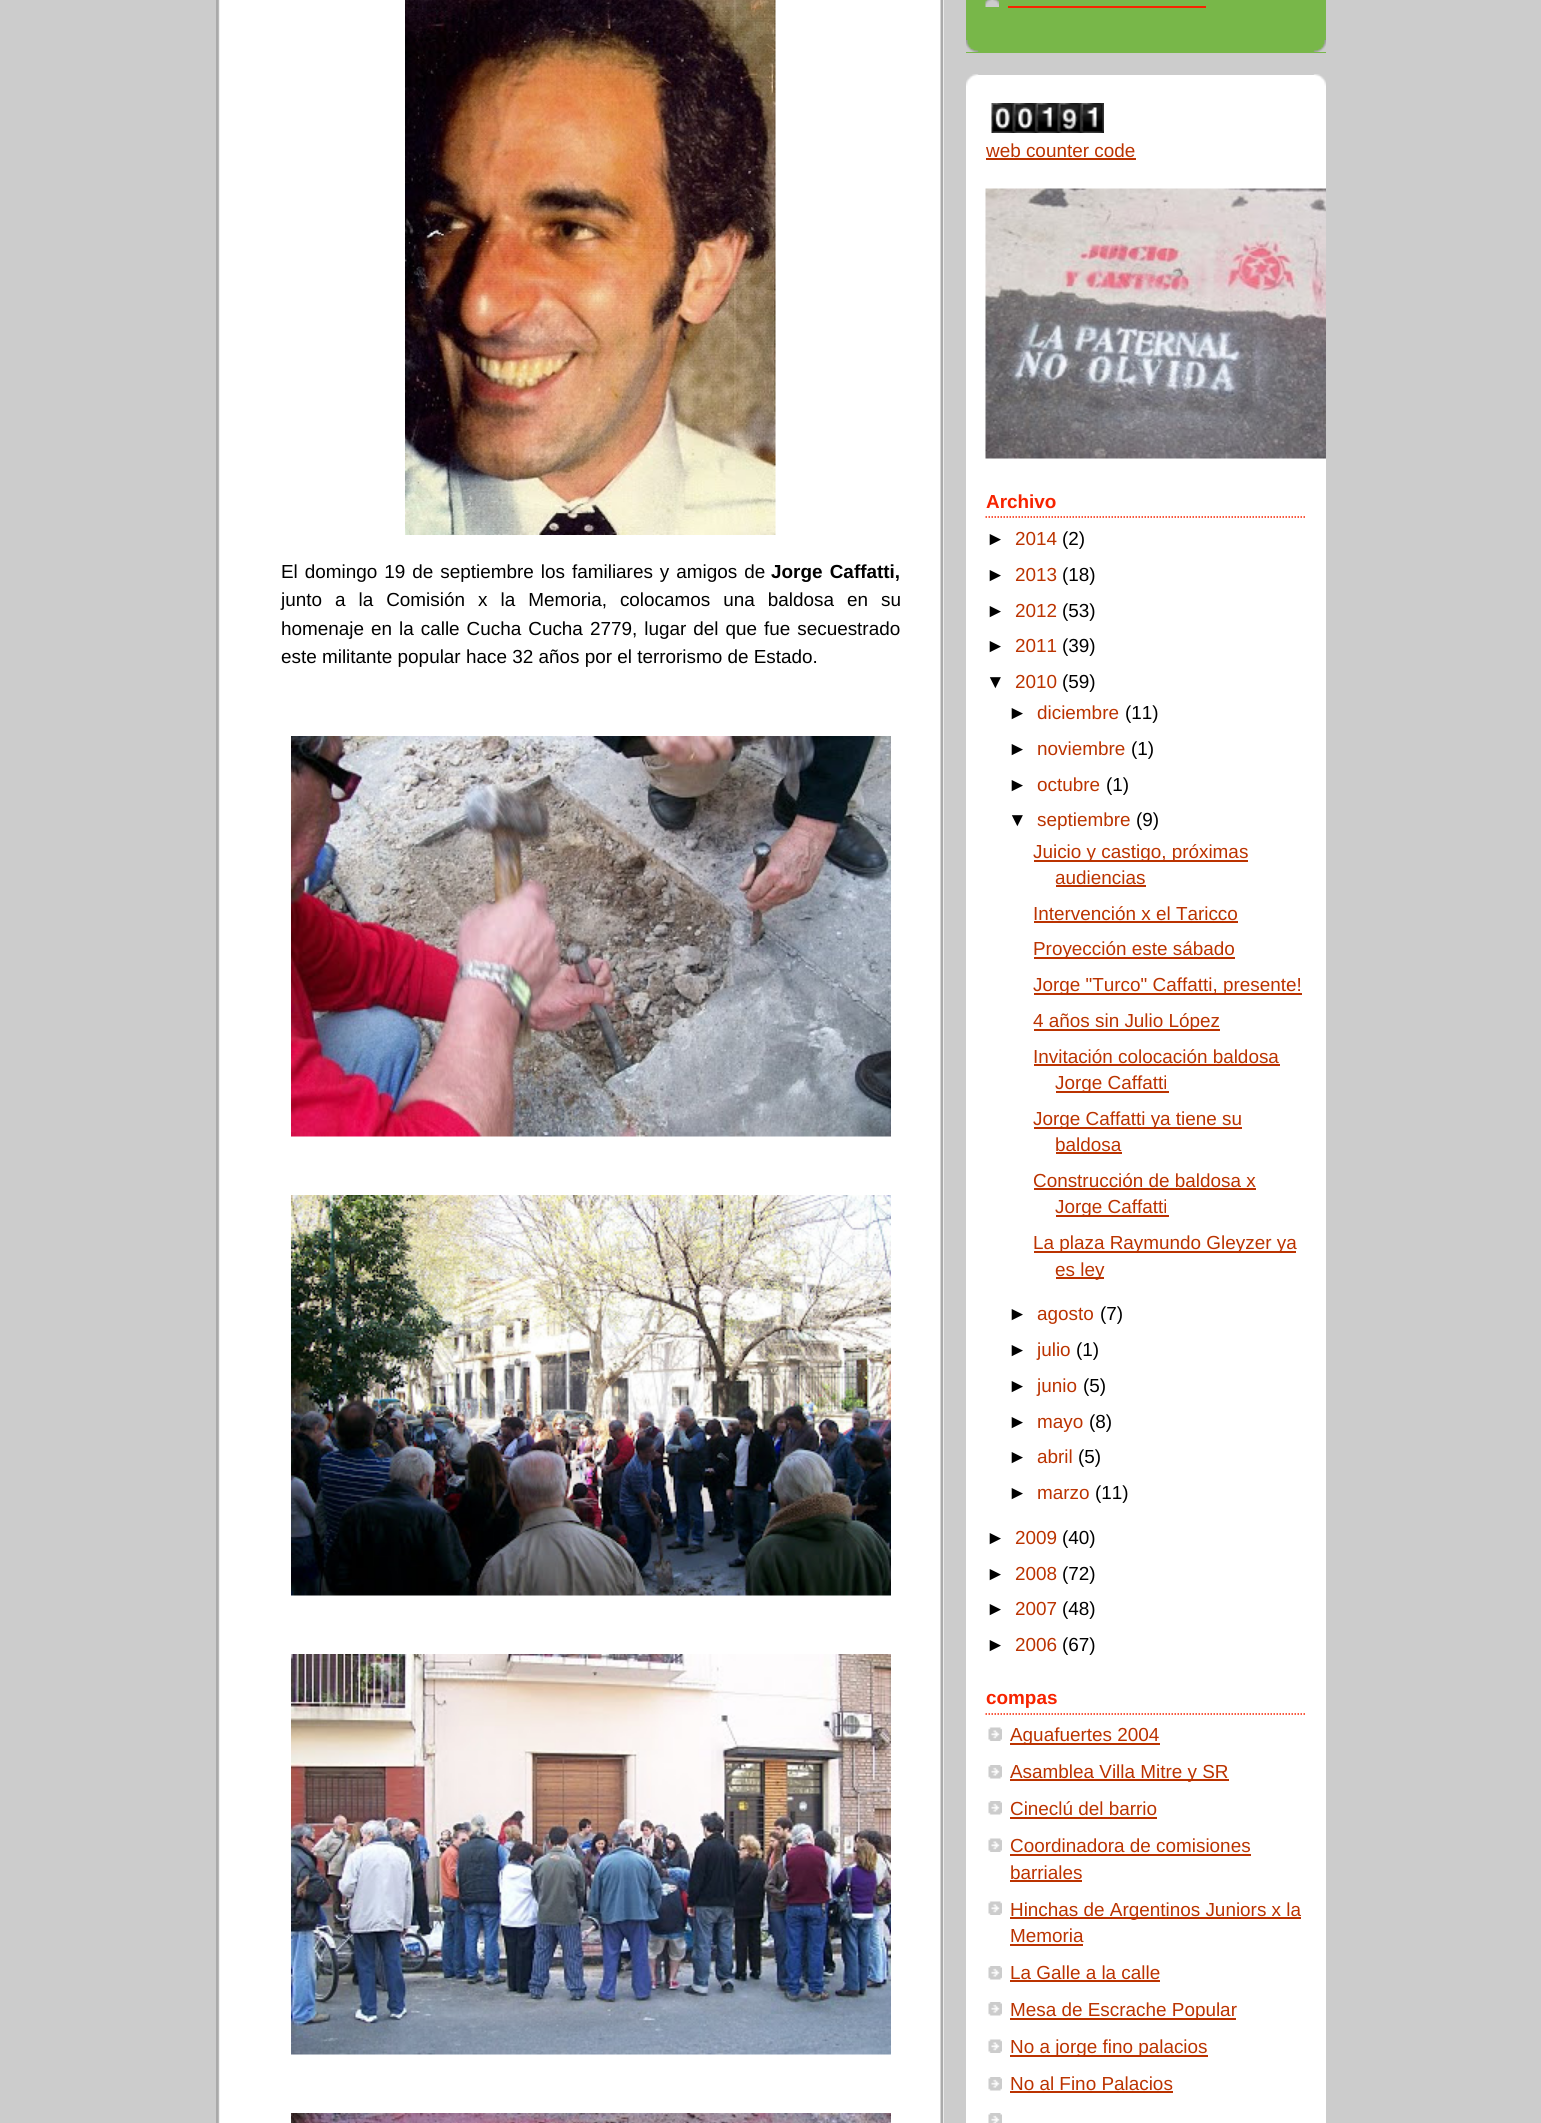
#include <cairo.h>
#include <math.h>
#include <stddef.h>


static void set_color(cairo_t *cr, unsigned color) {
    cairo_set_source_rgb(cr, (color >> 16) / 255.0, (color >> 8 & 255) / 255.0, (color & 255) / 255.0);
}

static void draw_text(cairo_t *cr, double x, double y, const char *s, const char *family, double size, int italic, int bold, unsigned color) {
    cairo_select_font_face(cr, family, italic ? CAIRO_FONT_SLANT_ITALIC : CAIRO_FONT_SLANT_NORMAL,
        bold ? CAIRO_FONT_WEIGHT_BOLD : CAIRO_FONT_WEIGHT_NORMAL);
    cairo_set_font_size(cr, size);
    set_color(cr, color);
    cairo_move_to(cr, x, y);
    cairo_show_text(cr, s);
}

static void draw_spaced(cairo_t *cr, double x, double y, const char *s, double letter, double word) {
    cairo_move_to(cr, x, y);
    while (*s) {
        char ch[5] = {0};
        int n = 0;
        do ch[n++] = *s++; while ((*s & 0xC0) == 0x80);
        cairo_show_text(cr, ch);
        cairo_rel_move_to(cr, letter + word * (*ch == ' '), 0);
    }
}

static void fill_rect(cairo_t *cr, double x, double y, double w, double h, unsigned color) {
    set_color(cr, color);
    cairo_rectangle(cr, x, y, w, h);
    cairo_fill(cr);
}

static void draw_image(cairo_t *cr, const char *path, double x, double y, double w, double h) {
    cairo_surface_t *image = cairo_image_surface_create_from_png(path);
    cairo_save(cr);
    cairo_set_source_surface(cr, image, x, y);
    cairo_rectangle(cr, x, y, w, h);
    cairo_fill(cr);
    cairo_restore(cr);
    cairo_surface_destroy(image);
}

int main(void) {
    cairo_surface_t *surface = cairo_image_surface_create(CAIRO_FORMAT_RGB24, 1541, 2123);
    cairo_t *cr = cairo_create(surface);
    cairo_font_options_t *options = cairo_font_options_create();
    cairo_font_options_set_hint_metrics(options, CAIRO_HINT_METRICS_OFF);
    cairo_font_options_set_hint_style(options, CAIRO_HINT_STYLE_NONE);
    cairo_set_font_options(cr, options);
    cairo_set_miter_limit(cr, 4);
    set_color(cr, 0xCCCCCC);
    cairo_paint(cr);
    fill_rect(cr, 218, 0, 726, 2123, 0xFFFFFF);
    draw_image(cr, "assets/img1.png", 216, 0, 728, 2123);
    draw_image(cr, "assets/img2.png", 405, 0, 371, 535);
    cairo_select_font_face(cr, "Liberation Sans", CAIRO_FONT_SLANT_NORMAL, CAIRO_FONT_WEIGHT_NORMAL);
    cairo_set_font_size(cr, 18.9);
    set_color(cr, 0x000000);
    draw_spaced(cr, 281, 578, "El domingo 19 de septiembre los familiares y amigos de", 0, 1.75);
    cairo_select_font_face(cr, "Liberation Sans", CAIRO_FONT_SLANT_NORMAL, CAIRO_FONT_WEIGHT_BOLD);
    draw_spaced(cr, 771, 578, "Jorge Caffatti,", 0, 2);
    cairo_select_font_face(cr, "Liberation Sans", CAIRO_FONT_SLANT_NORMAL, CAIRO_FONT_WEIGHT_NORMAL);
    draw_spaced(cr, 281, 606, "junto a la Comisión x la Memoria, colocamos una baldosa en su", 0, 7.75);
    draw_spaced(cr, 281, 635, "homenaje en la calle Cucha Cucha 2779, lugar del que fue secuestrado", 0, 1.75);
    draw_text(cr, 281, 663, "este militante popular hace 32 años por el terrorismo de Estado.", "Liberation Sans", 18.9, 0, 0, 0x000000);
    draw_image(cr, "assets/img3.png", 291, 736, 600, 401);
    draw_image(cr, "assets/img4.png", 291, 1195, 600, 401);
    draw_image(cr, "assets/img5.png", 291, 1654, 600, 401);
    draw_image(cr, "assets/img6.png", 291, 2113, 600, 10);
    fill_rect(cr, 966, 0, 360, 53, 0x78B749);
    draw_image(cr, "assets/img7.png", 966, 40, 360, 12);
    draw_image(cr, "assets/img8.png", 985, 0, 14, 7);
    fill_rect(cr, 1008, 6, 198, 2, 0xF72300);
    fill_rect(cr, 966, 75, 360, 2048, 0xFFFFFF);
    draw_image(cr, "assets/img9.png", 966, 74, 360, 12);
    draw_image(cr, "assets/img10.png", 991, 103, 113, 30);
    draw_text(cr, 986, 157, "web counter code", "Liberation Sans", 18.9, 0, 0, 0xBB3300);
    fill_rect(cr, 986, 158, 150, 2, 0xBB3300);
    draw_image(cr, "assets/img11.png", 985, 188, 341, 271);
    cairo_new_path(cr);
    cairo_move_to(cr, 985.5, 517);
    cairo_line_to(cr, 1306.5, 517);
    set_color(cr, 0xF72300);
    cairo_set_line_width(cr, 1.5);
    cairo_set_dash(cr, (double[]){1.5, 1.5}, 2, 0);
    cairo_stroke(cr);
    draw_text(cr, 986, 508, "Archivo", "Liberation Sans", 18.9, 0, 1, 0xF72300);
    draw_text(cr, 986, 545, "►", "Liberation Sans", 18.9, 0, 0, 0x000000);
    draw_text(cr, 1015, 545, "2014", "Liberation Sans", 18.9, 0, 0, 0xBB3300);
    draw_text(cr, 1062, 545, "(2)", "Liberation Sans", 18.9, 0, 0, 0x000000);
    draw_text(cr, 986, 581, "►", "Liberation Sans", 18.9, 0, 0, 0x000000);
    draw_text(cr, 1015, 581, "2013", "Liberation Sans", 18.9, 0, 0, 0xBB3300);
    draw_text(cr, 1062, 581, "(18)", "Liberation Sans", 18.9, 0, 0, 0x000000);
    draw_text(cr, 986, 617, "►", "Liberation Sans", 18.9, 0, 0, 0x000000);
    draw_text(cr, 1015, 617, "2012", "Liberation Sans", 18.9, 0, 0, 0xBB3300);
    draw_text(cr, 1062, 617, "(53)", "Liberation Sans", 18.9, 0, 0, 0x000000);
    draw_text(cr, 986, 652, "►", "Liberation Sans", 18.9, 0, 0, 0x000000);
    draw_text(cr, 1015, 652, "2011", "Liberation Sans", 18.9, 0, 0, 0xBB3300);
    draw_text(cr, 1062, 652, "(39)", "Liberation Sans", 18.9, 0, 0, 0x000000);
    draw_text(cr, 986, 688, "▼", "Liberation Sans", 18.9, 0, 0, 0x000000);
    draw_text(cr, 1015, 688, "2010", "Liberation Sans", 18.9, 0, 0, 0xBB3300);
    draw_text(cr, 1062, 688, "(59)", "Liberation Sans", 18.9, 0, 0, 0x000000);
    draw_text(cr, 1008, 719, "►", "Liberation Sans", 18.9, 0, 0, 0x000000);
    draw_text(cr, 1037, 719, "diciembre", "Liberation Sans", 18.9, 0, 0, 0xBB3300);
    draw_text(cr, 1125, 719, "(11)", "Liberation Sans", 18.9, 0, 0, 0x000000);
    draw_text(cr, 1008, 755, "►", "Liberation Sans", 18.9, 0, 0, 0x000000);
    draw_text(cr, 1037, 755, "noviembre", "Liberation Sans", 18.9, 0, 0, 0xBB3300);
    draw_text(cr, 1131, 755, "(1)", "Liberation Sans", 18.9, 0, 0, 0x000000);
    draw_text(cr, 1008, 791, "►", "Liberation Sans", 18.9, 0, 0, 0x000000);
    draw_text(cr, 1037, 791, "octubre", "Liberation Sans", 18.9, 0, 0, 0xBB3300);
    draw_text(cr, 1106, 791, "(1)", "Liberation Sans", 18.9, 0, 0, 0x000000);
    draw_text(cr, 1008, 826, "▼", "Liberation Sans", 18.9, 0, 0, 0x000000);
    draw_text(cr, 1037, 826, "septiembre", "Liberation Sans", 18.9, 0, 0, 0xBB3300);
    draw_text(cr, 1136, 826, "(9)", "Liberation Sans", 18.9, 0, 0, 0x000000);
    fill_rect(cr, 1034, 860, 214, 2, 0xBB3300);
    draw_text(cr, 1033, 858, "Juicio y castigo, próximas", "Liberation Sans", 18.9, 0, 0, 0xBB3300);
    draw_text(cr, 1055, 884, "audiencias", "Liberation Sans", 18.9, 0, 0, 0xBB3300);
    fill_rect(cr, 1056, 885, 90, 2, 0xBB3300);
    draw_text(cr, 1033, 920, "Intervención x el Taricco", "Liberation Sans", 18.9, 0, 0, 0xBB3300);
    fill_rect(cr, 1034, 921, 204, 2, 0xBB3300);
    fill_rect(cr, 1034, 957, 201, 2, 0xBB3300);
    draw_text(cr, 1033, 955, "Proyección este sábado", "Liberation Sans", 18.9, 0, 0, 0xBB3300);
    fill_rect(cr, 1034, 993, 268, 2, 0xBB3300);
    draw_text(cr, 1033, 991, "Jorge \"Turco\" Caffatti, presente!", "Liberation Sans", 18.9, 0, 0, 0xBB3300);
    fill_rect(cr, 1034, 1029, 186, 2, 0xBB3300);
    draw_text(cr, 1033, 1027, "4 años sin Julio López", "Liberation Sans", 18.9, 0, 0, 0xBB3300);
    draw_text(cr, 1033, 1063, "Invitación colocación baldosa", "Liberation Sans", 18.9, 0, 0, 0xBB3300);
    fill_rect(cr, 1034, 1064, 246, 2, 0xBB3300);
    fill_rect(cr, 1056, 1091, 113, 2, 0xBB3300);
    draw_text(cr, 1055, 1089, "Jorge Caffatti", "Liberation Sans", 18.9, 0, 0, 0xBB3300);
    fill_rect(cr, 1034, 1127, 208, 2, 0xBB3300);
    draw_text(cr, 1033, 1125, "Jorge Caffatti ya tiene su", "Liberation Sans", 18.9, 0, 0, 0xBB3300);
    draw_text(cr, 1055, 1151, "baldosa", "Liberation Sans", 18.9, 0, 0, 0xBB3300);
    fill_rect(cr, 1056, 1152, 66, 2, 0xBB3300);
    draw_text(cr, 1033, 1187, "Construcción de baldosa x", "Liberation Sans", 18.9, 0, 0, 0xBB3300);
    fill_rect(cr, 1034, 1188, 222, 2, 0xBB3300);
    fill_rect(cr, 1056, 1215, 113, 2, 0xBB3300);
    draw_text(cr, 1055, 1213, "Jorge Caffatti", "Liberation Sans", 18.9, 0, 0, 0xBB3300);
    fill_rect(cr, 1034, 1251, 262, 2, 0xBB3300);
    draw_text(cr, 1033, 1249, "La plaza Raymundo Gleyzer ya", "Liberation Sans", 18.9, 0, 0, 0xBB3300);
    fill_rect(cr, 1056, 1277, 48, 2, 0xBB3300);
    draw_text(cr, 1055, 1276, "es ley", "Liberation Sans", 18.9, 0, 0, 0xBB3300);
    draw_text(cr, 1008, 1320, "►", "Liberation Sans", 18.9, 0, 0, 0x000000);
    draw_text(cr, 1037, 1320, "agosto", "Liberation Sans", 18.9, 0, 0, 0xBB3300);
    draw_text(cr, 1100, 1320, "(7)", "Liberation Sans", 18.9, 0, 0, 0x000000);
    draw_text(cr, 1008, 1356, "►", "Liberation Sans", 18.9, 0, 0, 0x000000);
    draw_text(cr, 1037, 1356, "julio", "Liberation Sans", 18.9, 0, 0, 0xBB3300);
    draw_text(cr, 1076, 1356, "(1)", "Liberation Sans", 18.9, 0, 0, 0x000000);
    draw_text(cr, 1008, 1392, "►", "Liberation Sans", 18.9, 0, 0, 0x000000);
    draw_text(cr, 1037, 1392, "junio", "Liberation Sans", 18.9, 0, 0, 0xBB3300);
    draw_text(cr, 1083, 1392, "(5)", "Liberation Sans", 18.9, 0, 0, 0x000000);
    draw_text(cr, 1008, 1428, "►", "Liberation Sans", 18.9, 0, 0, 0x000000);
    draw_text(cr, 1037, 1428, "mayo", "Liberation Sans", 18.9, 0, 0, 0xBB3300);
    draw_text(cr, 1089, 1428, "(8)", "Liberation Sans", 18.9, 0, 0, 0x000000);
    draw_text(cr, 1008, 1463, "►", "Liberation Sans", 18.9, 0, 0, 0x000000);
    draw_text(cr, 1037, 1463, "abril", "Liberation Sans", 18.9, 0, 0, 0xBB3300);
    draw_text(cr, 1078, 1463, "(5)", "Liberation Sans", 18.9, 0, 0, 0x000000);
    draw_text(cr, 1008, 1499, "►", "Liberation Sans", 18.9, 0, 0, 0x000000);
    draw_text(cr, 1037, 1499, "marzo", "Liberation Sans", 18.9, 0, 0, 0xBB3300);
    draw_text(cr, 1095, 1499, "(11)", "Liberation Sans", 18.9, 0, 0, 0x000000);
    draw_text(cr, 986, 1544, "►", "Liberation Sans", 18.9, 0, 0, 0x000000);
    draw_text(cr, 1015, 1544, "2009", "Liberation Sans", 18.9, 0, 0, 0xBB3300);
    draw_text(cr, 1062, 1544, "(40)", "Liberation Sans", 18.9, 0, 0, 0x000000);
    draw_text(cr, 986, 1580, "►", "Liberation Sans", 18.9, 0, 0, 0x000000);
    draw_text(cr, 1015, 1580, "2008", "Liberation Sans", 18.9, 0, 0, 0xBB3300);
    draw_text(cr, 1062, 1580, "(72)", "Liberation Sans", 18.9, 0, 0, 0x000000);
    draw_text(cr, 986, 1615, "►", "Liberation Sans", 18.9, 0, 0, 0x000000);
    draw_text(cr, 1015, 1615, "2007", "Liberation Sans", 18.9, 0, 0, 0xBB3300);
    draw_text(cr, 1062, 1615, "(48)", "Liberation Sans", 18.9, 0, 0, 0x000000);
    draw_text(cr, 986, 1651, "►", "Liberation Sans", 18.9, 0, 0, 0x000000);
    draw_text(cr, 1015, 1651, "2006", "Liberation Sans", 18.9, 0, 0, 0xBB3300);
    draw_text(cr, 1062, 1651, "(67)", "Liberation Sans", 18.9, 0, 0, 0x000000);
    cairo_new_path(cr);
    cairo_move_to(cr, 985.5, 1714);
    cairo_line_to(cr, 1306.5, 1714);
    set_color(cr, 0xF72300);
    cairo_stroke(cr);
    draw_text(cr, 986, 1704, "compas", "Liberation Sans", 18.9, 0, 1, 0xF72300);
    draw_image(cr, "assets/img12.png", 988, 1727, 14, 14);
    fill_rect(cr, 1010, 1743, 150, 2, 0xBB3300);
    draw_text(cr, 1010, 1741, "Aguafuertes 2004", "Liberation Sans", 18.9, 0, 0, 0xBB3300);
    draw_image(cr, "assets/img13.png", 988, 1765, 14, 14);
    fill_rect(cr, 1010, 1779, 219, 2, 0xBB3300);
    draw_text(cr, 1010, 1778, "Asamblea Villa Mitre y SR", "Liberation Sans", 18.9, 0, 0, 0xBB3300);
    draw_image(cr, "assets/img13.png", 988, 1801, 14, 14);
    draw_text(cr, 1010, 1815, "Cineclú del barrio", "Liberation Sans", 18.9, 0, 0, 0xBB3300);
    fill_rect(cr, 1010, 1817, 147, 2, 0xBB3300);
    draw_image(cr, "assets/img12.png", 988, 1838, 14, 14);
    draw_text(cr, 1010, 1852, "Coordinadora de comisiones", "Liberation Sans", 18.9, 0, 0, 0xBB3300);
    fill_rect(cr, 1010, 1854, 241, 2, 0xBB3300);
    draw_text(cr, 1010, 1879, "barriales", "Liberation Sans", 18.9, 0, 0, 0xBB3300);
    fill_rect(cr, 1010, 1880, 72, 2, 0xBB3300);
    draw_image(cr, "assets/img12.png", 988, 1901, 14, 14);
    fill_rect(cr, 1010, 1917, 291, 2, 0xBB3300);
    draw_text(cr, 1010, 1916, "Hinchas de Argentinos Juniors x la", "Liberation Sans", 18.9, 0, 0, 0xBB3300);
    draw_text(cr, 1010, 1942, "Memoria", "Liberation Sans", 18.9, 0, 0, 0xBB3300);
    fill_rect(cr, 1010, 1944, 73, 2, 0xBB3300);
    draw_image(cr, "assets/img13.png", 988, 1966, 14, 14);
    draw_text(cr, 1010, 1979, "La Galle a la calle", "Liberation Sans", 18.9, 0, 0, 0xBB3300);
    fill_rect(cr, 1010, 1980, 150, 2, 0xBB3300);
    draw_image(cr, "assets/img13.png", 988, 2002, 14, 14);
    fill_rect(cr, 1010, 2018, 226, 2, 0xBB3300);
    draw_text(cr, 1010, 2016, "Mesa de Escrache Popular", "Liberation Sans", 18.9, 0, 0, 0xBB3300);
    draw_image(cr, "assets/img12.png", 988, 2039, 14, 14);
    fill_rect(cr, 1010, 2055, 198, 2, 0xBB3300);
    draw_text(cr, 1010, 2053, "No a jorge fino palacios", "Liberation Sans", 18.9, 0, 0, 0xBB3300);
    draw_image(cr, "assets/img13.png", 988, 2077, 14, 14);
    draw_text(cr, 1010, 2090, "No al Fino Palacios", "Liberation Sans", 18.9, 0, 0, 0xBB3300);
    fill_rect(cr, 1010, 2091, 163, 2, 0xBB3300);
    draw_image(cr, "assets/img14.png", 988, 2113, 14, 10);
    cairo_surface_write_to_png(surface, "output.png");
    cairo_font_options_destroy(options);
    cairo_destroy(cr);
    cairo_surface_destroy(surface);
    return 0;
}
